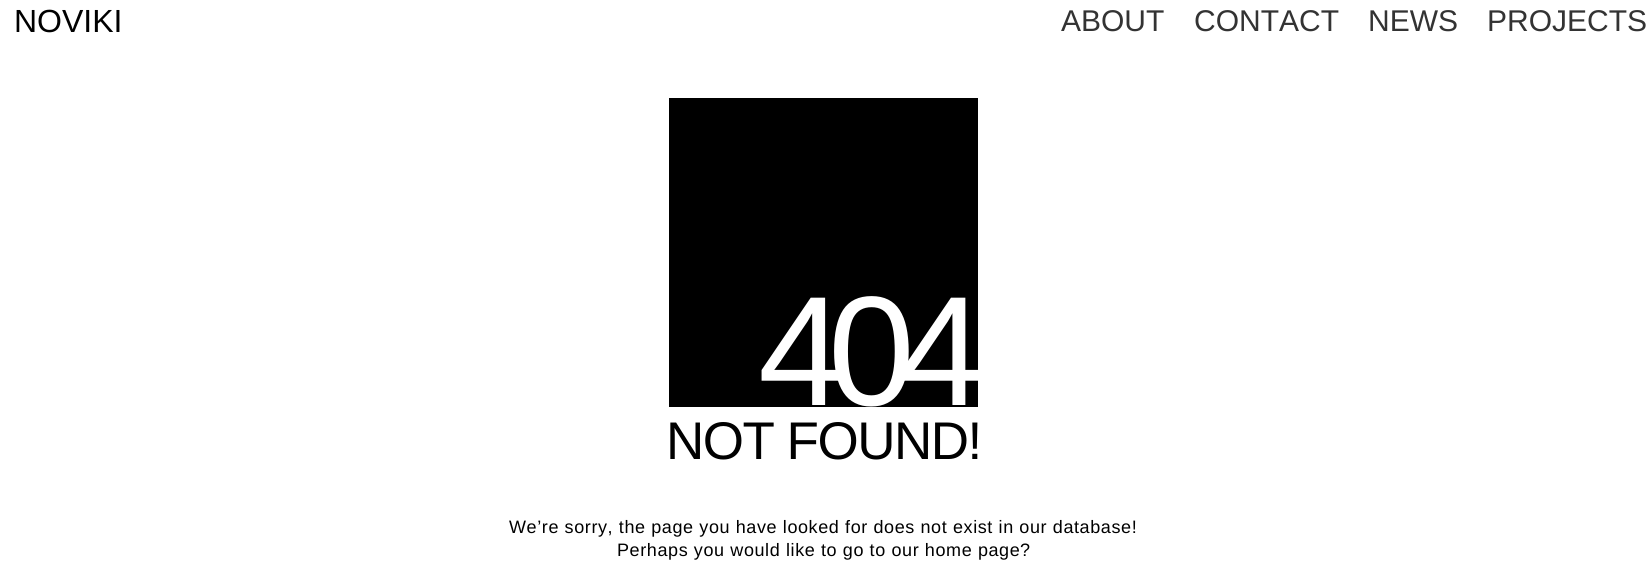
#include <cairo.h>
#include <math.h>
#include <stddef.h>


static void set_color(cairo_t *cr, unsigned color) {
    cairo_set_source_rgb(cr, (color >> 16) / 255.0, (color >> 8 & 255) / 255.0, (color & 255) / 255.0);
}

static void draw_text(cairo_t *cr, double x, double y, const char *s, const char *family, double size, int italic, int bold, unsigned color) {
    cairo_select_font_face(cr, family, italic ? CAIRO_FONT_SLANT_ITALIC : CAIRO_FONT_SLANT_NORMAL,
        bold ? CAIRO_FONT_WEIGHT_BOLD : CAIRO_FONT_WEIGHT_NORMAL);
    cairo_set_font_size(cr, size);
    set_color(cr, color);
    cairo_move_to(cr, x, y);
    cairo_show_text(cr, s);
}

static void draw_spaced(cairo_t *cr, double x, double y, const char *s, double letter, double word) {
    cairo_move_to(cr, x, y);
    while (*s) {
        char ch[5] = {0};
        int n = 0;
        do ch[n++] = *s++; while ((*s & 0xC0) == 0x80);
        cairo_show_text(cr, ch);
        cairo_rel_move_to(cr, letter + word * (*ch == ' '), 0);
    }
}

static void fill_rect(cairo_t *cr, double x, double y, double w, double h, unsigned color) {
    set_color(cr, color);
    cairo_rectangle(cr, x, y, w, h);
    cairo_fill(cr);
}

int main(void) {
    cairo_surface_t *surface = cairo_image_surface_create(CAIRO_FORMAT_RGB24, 1647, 578);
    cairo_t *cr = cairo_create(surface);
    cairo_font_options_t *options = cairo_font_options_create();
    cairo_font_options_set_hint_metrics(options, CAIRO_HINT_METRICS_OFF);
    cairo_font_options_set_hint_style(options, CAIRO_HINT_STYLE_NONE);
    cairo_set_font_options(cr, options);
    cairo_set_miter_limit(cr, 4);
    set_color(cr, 0xFFFFFF);
    cairo_paint(cr);
    draw_text(cr, 14, 32, "NOVIKI", "Liberation Sans", 32, 0, 0, 0x000000);
    draw_text(cr, 1061, 31, "ABOUT", "Liberation Sans", 30, 0, 0, 0x333333);
    draw_text(cr, 1194, 31, "CONTACT", "Liberation Sans", 30, 0, 0, 0x333333);
    draw_text(cr, 1368, 31, "NEWS", "Liberation Sans", 30, 0, 0, 0x333333);
    draw_text(cr, 1487, 31, "PROJECTS", "Liberation Sans", 30, 0, 0, 0x333333);
    fill_rect(cr, 669, 98, 309, 309, 0x000000);
    cairo_set_font_size(cr, 156);
    set_color(cr, 0xFFFFFF);
    draw_spaced(cr, 758, 405, "4 0 4", -30, 0);
    cairo_set_font_size(cr, 53);
    set_color(cr, 0x000000);
    draw_spaced(cr, 666, 459, "NOT FOUND!", -1.5, 0);
    cairo_set_font_size(cr, 18);
    draw_spaced(cr, 509, 533, "We’re sorry, the page you have looked for does not exist in our database!", 0.6, 0);
    draw_spaced(cr, 617, 556, "Perhaps you would like to go to our home page", 0.6, 0);
    draw_spaced(cr, 1020, 556, "?", 0.6, 0);
    cairo_surface_write_to_png(surface, "output.png");
    cairo_font_options_destroy(options);
    cairo_destroy(cr);
    cairo_surface_destroy(surface);
    return 0;
}
